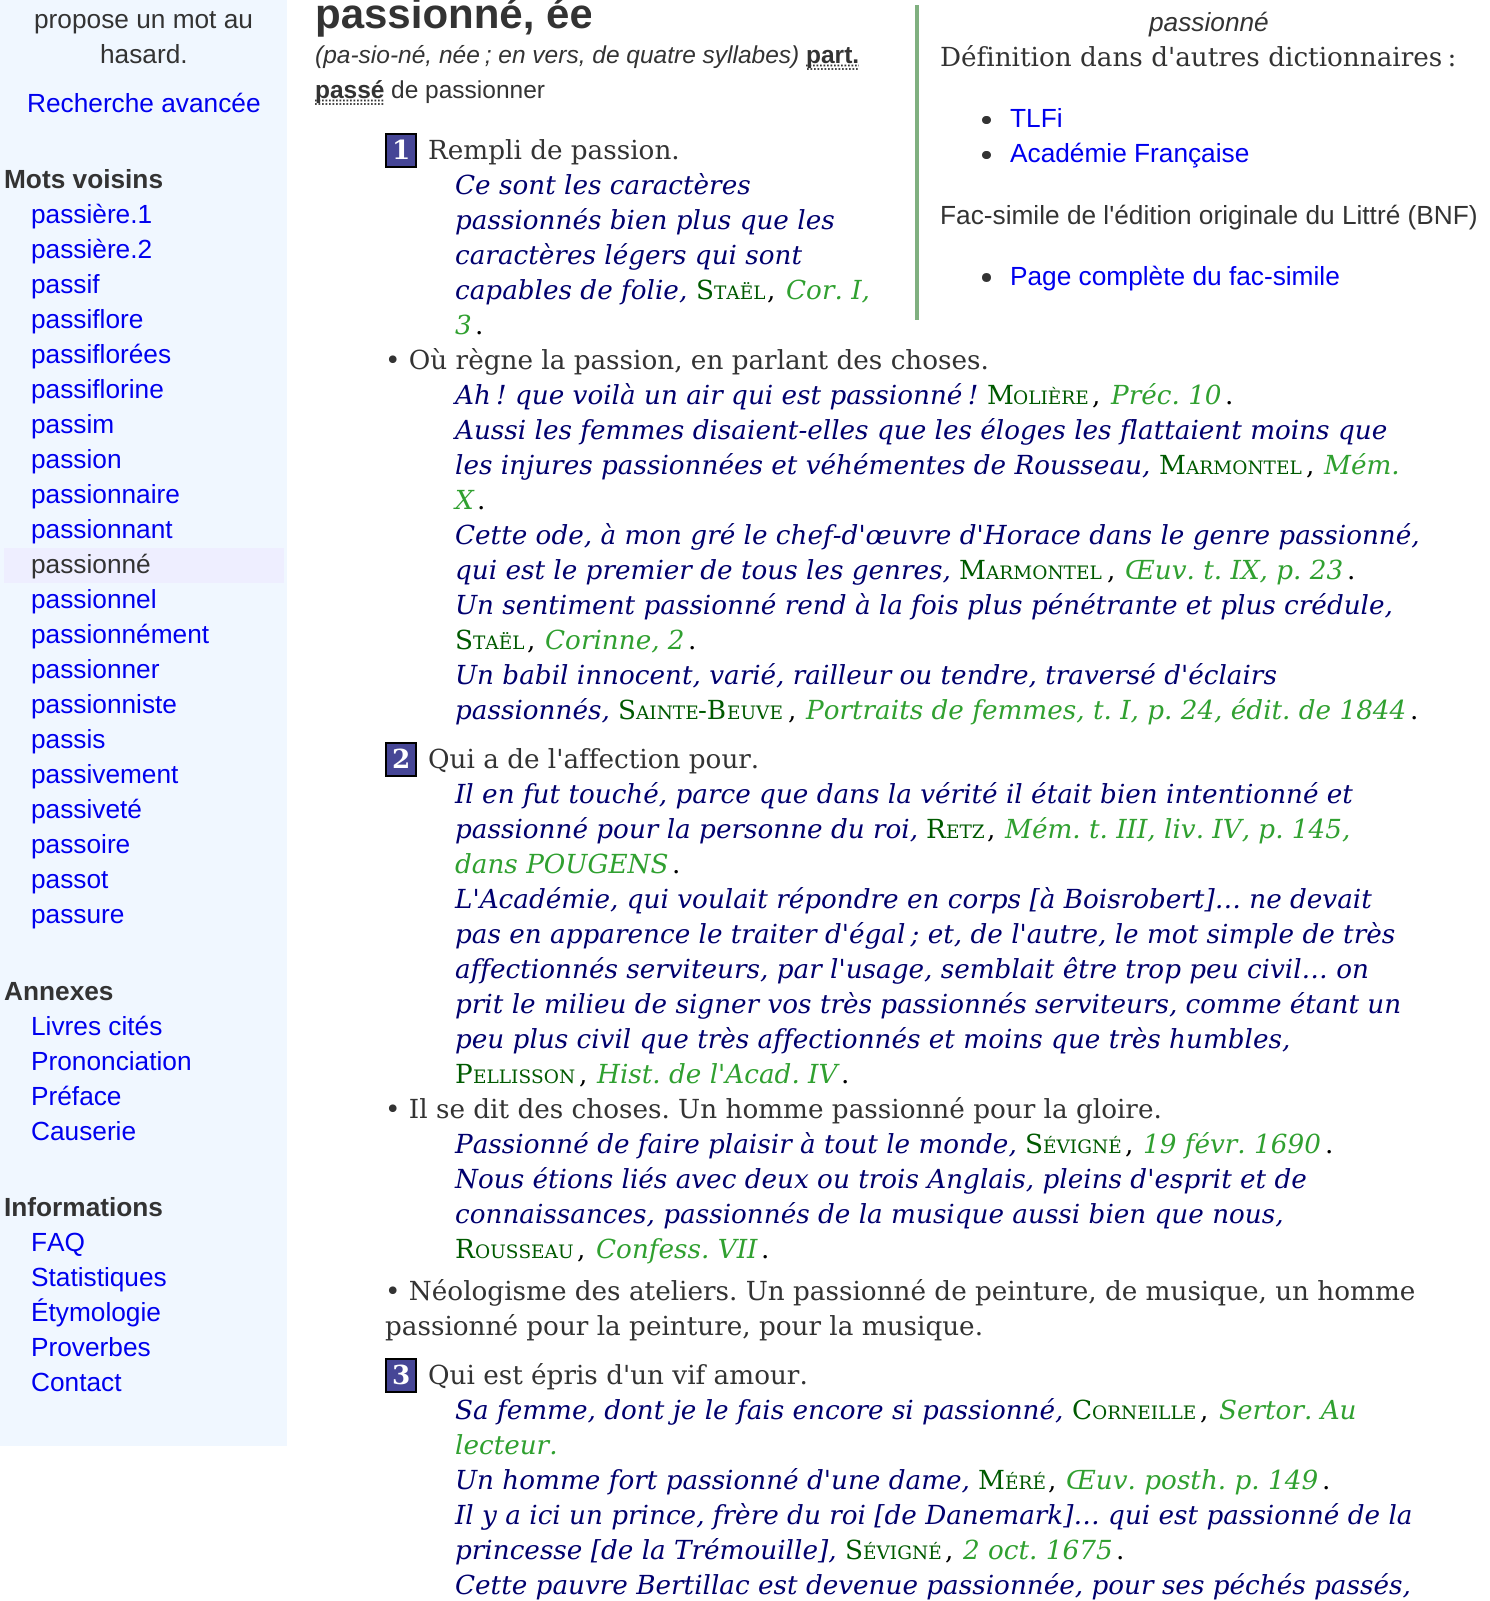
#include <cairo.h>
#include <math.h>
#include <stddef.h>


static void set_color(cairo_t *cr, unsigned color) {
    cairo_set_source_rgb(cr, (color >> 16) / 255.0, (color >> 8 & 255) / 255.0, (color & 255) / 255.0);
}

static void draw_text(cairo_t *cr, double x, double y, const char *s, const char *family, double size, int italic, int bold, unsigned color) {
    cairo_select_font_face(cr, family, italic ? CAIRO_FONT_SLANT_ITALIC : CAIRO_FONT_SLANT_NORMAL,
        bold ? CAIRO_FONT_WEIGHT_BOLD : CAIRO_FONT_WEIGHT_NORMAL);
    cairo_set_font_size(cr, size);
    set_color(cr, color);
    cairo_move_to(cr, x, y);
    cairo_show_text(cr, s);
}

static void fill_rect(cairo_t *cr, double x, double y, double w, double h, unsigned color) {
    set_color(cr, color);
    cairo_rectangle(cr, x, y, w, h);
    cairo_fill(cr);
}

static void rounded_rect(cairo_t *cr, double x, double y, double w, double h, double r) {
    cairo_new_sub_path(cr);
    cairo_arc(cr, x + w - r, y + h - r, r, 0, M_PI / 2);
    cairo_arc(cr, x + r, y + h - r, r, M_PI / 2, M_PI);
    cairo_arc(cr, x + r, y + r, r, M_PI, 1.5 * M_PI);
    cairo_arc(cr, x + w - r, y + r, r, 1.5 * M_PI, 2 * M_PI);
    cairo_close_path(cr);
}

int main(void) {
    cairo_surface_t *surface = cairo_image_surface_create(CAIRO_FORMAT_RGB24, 1490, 1601);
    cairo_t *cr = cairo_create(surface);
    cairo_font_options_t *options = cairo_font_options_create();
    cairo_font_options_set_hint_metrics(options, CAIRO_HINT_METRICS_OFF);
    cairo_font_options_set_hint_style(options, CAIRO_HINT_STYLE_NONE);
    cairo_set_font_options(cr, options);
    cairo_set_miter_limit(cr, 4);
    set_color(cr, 0xFFFFFF);
    cairo_paint(cr);
    fill_rect(cr, 0, 0, 287, 1446, 0xF0F7FF);
    draw_text(cr, 34, 28, "propose un mot au", "Liberation Sans", 26.25, 0, 0, 0x333333);
    draw_text(cr, 100, 63, "hasard.", "Liberation Sans", 26.25, 0, 0, 0x333333);
    draw_text(cr, 27, 112, "Recherche avancée", "Liberation Sans", 26.25, 0, 0, 0x0000EE);
    draw_text(cr, 4, 188, "Mots voisins", "Liberation Sans", 26.25, 0, 1, 0x333333);
    draw_text(cr, 31, 223, "passière.1", "Liberation Sans", 26.25, 0, 0, 0x0000EE);
    draw_text(cr, 31, 258, "passière.2", "Liberation Sans", 26.25, 0, 0, 0x0000EE);
    draw_text(cr, 31, 293, "passif", "Liberation Sans", 26.25, 0, 0, 0x0000EE);
    draw_text(cr, 31, 328, "passiflore", "Liberation Sans", 26.25, 0, 0, 0x0000EE);
    draw_text(cr, 31, 363, "passiflorées", "Liberation Sans", 26.25, 0, 0, 0x0000EE);
    draw_text(cr, 31, 398, "passiflorine", "Liberation Sans", 26.25, 0, 0, 0x0000EE);
    draw_text(cr, 31, 433, "passim", "Liberation Sans", 26.25, 0, 0, 0x0000EE);
    draw_text(cr, 31, 468, "passion", "Liberation Sans", 26.25, 0, 0, 0x0000EE);
    draw_text(cr, 31, 503, "passionnaire", "Liberation Sans", 26.25, 0, 0, 0x0000EE);
    draw_text(cr, 31, 538, "passionnant", "Liberation Sans", 26.25, 0, 0, 0x0000EE);
    fill_rect(cr, 4, 548, 280, 35, 0xEEEEFF);
    draw_text(cr, 31, 573, "passionné", "Liberation Sans", 26.25, 0, 0, 0x333333);
    draw_text(cr, 31, 608, "passionnel", "Liberation Sans", 26.25, 0, 0, 0x0000EE);
    draw_text(cr, 31, 643, "passionnément", "Liberation Sans", 26.25, 0, 0, 0x0000EE);
    draw_text(cr, 31, 678, "passionner", "Liberation Sans", 26.25, 0, 0, 0x0000EE);
    draw_text(cr, 31, 713, "passionniste", "Liberation Sans", 26.25, 0, 0, 0x0000EE);
    draw_text(cr, 31, 748, "passis", "Liberation Sans", 26.25, 0, 0, 0x0000EE);
    draw_text(cr, 31, 783, "passivement", "Liberation Sans", 26.25, 0, 0, 0x0000EE);
    draw_text(cr, 31, 818, "passiveté", "Liberation Sans", 26.25, 0, 0, 0x0000EE);
    draw_text(cr, 31, 853, "passoire", "Liberation Sans", 26.25, 0, 0, 0x0000EE);
    draw_text(cr, 31, 888, "passot", "Liberation Sans", 26.25, 0, 0, 0x0000EE);
    draw_text(cr, 31, 923, "passure", "Liberation Sans", 26.25, 0, 0, 0x0000EE);
    draw_text(cr, 4, 1000, "Annexes", "Liberation Sans", 26.25, 0, 1, 0x333333);
    draw_text(cr, 31, 1035, "Livres cités", "Liberation Sans", 26.25, 0, 0, 0x0000EE);
    draw_text(cr, 31, 1070, "Prononciation", "Liberation Sans", 26.25, 0, 0, 0x0000EE);
    draw_text(cr, 31, 1105, "Préface", "Liberation Sans", 26.25, 0, 0, 0x0000EE);
    draw_text(cr, 31, 1140, "Causerie", "Liberation Sans", 26.25, 0, 0, 0x0000EE);
    draw_text(cr, 4, 1216, "Informations", "Liberation Sans", 26.25, 0, 1, 0x333333);
    draw_text(cr, 31, 1251, "FAQ", "Liberation Sans", 26.25, 0, 0, 0x0000EE);
    draw_text(cr, 31, 1286, "Statistiques", "Liberation Sans", 26.25, 0, 0, 0x0000EE);
    draw_text(cr, 31, 1321, "Étymologie", "Liberation Sans", 26.25, 0, 0, 0x0000EE);
    draw_text(cr, 31, 1356, "Proverbes", "Liberation Sans", 26.25, 0, 0, 0x0000EE);
    draw_text(cr, 31, 1391, "Contact", "Liberation Sans", 26.25, 0, 0, 0x0000EE);
    draw_text(cr, 315, 28, "passionné, ée", "Liberation Sans", 42, 0, 1, 0x333333);
    draw_text(cr, 315, 63, "(pa-sio-né, née ; en vers, de quatre syllabes)", "Liberation Sans", 24.5, 1, 0, 0x333333);
    cairo_new_path(cr);
    cairo_move_to(cr, 807, 69);
    cairo_line_to(cr, 859, 69);
    cairo_set_line_width(cr, 1.8);
    cairo_set_dash(cr, (double[]){1.75, 1.75}, 2, 0);
    cairo_stroke(cr);
    cairo_new_path(cr);
    cairo_move_to(cr, 806, 65.5);
    cairo_line_to(cr, 859, 65.5);
    cairo_stroke(cr);
    draw_text(cr, 806, 63, "part.", "Liberation Sans", 24.5, 0, 1, 0x333333);
    cairo_new_path(cr);
    cairo_move_to(cr, 315, 104);
    cairo_line_to(cr, 385, 104);
    cairo_stroke(cr);
    cairo_new_path(cr);
    cairo_move_to(cr, 315, 100.5);
    cairo_line_to(cr, 384.5, 100.5);
    cairo_stroke(cr);
    draw_text(cr, 315, 98, "passé", "Liberation Sans", 24.5, 0, 1, 0x333333);
    draw_text(cr, 391, 98, "de passionner", "Liberation Sans", 24.5, 0, 0, 0x333333);
    set_color(cr, 0x464696);
    cairo_rectangle(cr, 386, 134, 30, 33);
    cairo_fill_preserve(cr);
    set_color(cr, 0x000000);
    cairo_set_line_width(cr, 2);
    cairo_set_dash(cr, NULL, 0, 0);
    cairo_stroke(cr);
    draw_text(cr, 392, 159, "1", "DejaVu Serif", 26.25, 0, 1, 0xFFFFFF);
    draw_text(cr, 428, 159, "Rempli de passion.", "DejaVu Serif", 26.25, 0, 0, 0x333333);
    draw_text(cr, 455, 194, "Ce sont les caractères", "DejaVu Serif", 26.25, 1, 0, 0x00006E);
    draw_text(cr, 455, 229, "passionnés bien plus que les", "DejaVu Serif", 26.25, 1, 0, 0x00006E);
    draw_text(cr, 455, 264, "caractères légers qui sont", "DejaVu Serif", 26.25, 1, 0, 0x00006E);
    draw_text(cr, 455, 299, "capables de folie,", "DejaVu Serif", 26.25, 1, 0, 0x00006E);
    draw_text(cr, 696, 299, "S", "DejaVu Serif", 26.25, 0, 0, 0x005A00);
    draw_text(cr, 714, 299, "TAËL", "DejaVu Serif", 18.5, 0, 0, 0x005A00);
    draw_text(cr, 767, 299, ",", "DejaVu Serif", 26.25, 0, 0, 0x000000);
    draw_text(cr, 786, 299, "Cor. I,", "DejaVu Serif", 26.25, 1, 0, 0x30A030);
    draw_text(cr, 455, 334, "3", "DejaVu Serif", 26.25, 1, 0, 0x30A030);
    draw_text(cr, 475, 334, ".", "DejaVu Serif", 26.25, 0, 0, 0x000000);
    draw_text(cr, 385, 369, "• Où règne la passion, en parlant des choses.", "DejaVu Serif", 26.25, 0, 0, 0x333333);
    draw_text(cr, 455, 404, "Ah ! que voilà un air qui est passionné !", "DejaVu Serif", 26.25, 1, 0, 0x00006E);
    draw_text(cr, 987, 404, "M", "DejaVu Serif", 26.25, 0, 0, 0x005A00);
    draw_text(cr, 1013, 404, "OLIÈRE", "DejaVu Serif", 18.5, 0, 0, 0x005A00);
    draw_text(cr, 1092, 404, ",", "DejaVu Serif", 26.25, 0, 0, 0x000000);
    draw_text(cr, 1111, 404, "Préc. 10", "DejaVu Serif", 26.25, 1, 0, 0x30A030);
    draw_text(cr, 1225, 404, ".", "DejaVu Serif", 26.25, 0, 0, 0x000000);
    draw_text(cr, 455, 439, "Aussi les femmes disaient-elles que les éloges les flattaient moins que", "DejaVu Serif", 26.25, 1, 0, 0x00006E);
    draw_text(cr, 455, 474, "les injures passionnées et véhémentes de Rousseau,", "DejaVu Serif", 26.25, 1, 0, 0x00006E);
    draw_text(cr, 1159, 474, "M", "DejaVu Serif", 26.25, 0, 0, 0x005A00);
    draw_text(cr, 1186, 474, "ARMONTEL", "DejaVu Serif", 18.5, 0, 0, 0x005A00);
    draw_text(cr, 1306, 474, ",", "DejaVu Serif", 26.25, 0, 0, 0x000000);
    draw_text(cr, 1324, 474, "Mém.", "DejaVu Serif", 26.25, 1, 0, 0x30A030);
    draw_text(cr, 455, 509, "X", "DejaVu Serif", 26.25, 1, 0, 0x30A030);
    draw_text(cr, 477, 509, ".", "DejaVu Serif", 26.25, 0, 0, 0x000000);
    draw_text(cr, 455, 544, "Cette ode, à mon gré le chef-d'œuvre d'Horace dans le genre passionné,", "DejaVu Serif", 26.25, 1, 0, 0x00006E);
    draw_text(cr, 455, 579, "qui est le premier de tous les genres,", "DejaVu Serif", 26.25, 1, 0, 0x00006E);
    draw_text(cr, 959, 579, "M", "DejaVu Serif", 26.25, 0, 0, 0x005A00);
    draw_text(cr, 986, 579, "ARMONTEL", "DejaVu Serif", 18.5, 0, 0, 0x005A00);
    draw_text(cr, 1107, 579, ",", "DejaVu Serif", 26.25, 0, 0, 0x000000);
    draw_text(cr, 1125, 579, "Œuv. t. IX, p. 23", "DejaVu Serif", 26.25, 1, 0, 0x30A030);
    draw_text(cr, 1347, 579, ".", "DejaVu Serif", 26.25, 0, 0, 0x000000);
    draw_text(cr, 455, 614, "Un sentiment passionné rend à la fois plus pénétrante et plus crédule,", "DejaVu Serif", 26.25, 1, 0, 0x00006E);
    draw_text(cr, 455, 649, "S", "DejaVu Serif", 26.25, 0, 0, 0x005A00);
    draw_text(cr, 473, 649, "TAËL", "DejaVu Serif", 18.5, 0, 0, 0x005A00);
    draw_text(cr, 527, 649, ",", "DejaVu Serif", 26.25, 0, 0, 0x000000);
    draw_text(cr, 545, 649, "Corinne, 2", "DejaVu Serif", 26.25, 1, 0, 0x30A030);
    draw_text(cr, 688, 649, ".", "DejaVu Serif", 26.25, 0, 0, 0x000000);
    draw_text(cr, 455, 684, "Un babil innocent, varié, railleur ou tendre, traversé d'éclairs", "DejaVu Serif", 26.25, 1, 0, 0x00006E);
    draw_text(cr, 455, 719, "passionnés,", "DejaVu Serif", 26.25, 1, 0, 0x00006E);
    draw_text(cr, 618, 719, "S", "DejaVu Serif", 26.25, 0, 0, 0x005A00);
    draw_text(cr, 636, 719, "AINTE", "DejaVu Serif", 18.5, 0, 0, 0x005A00);
    draw_text(cr, 698, 719, "-B", "DejaVu Serif", 26.25, 0, 0, 0x005A00);
    draw_text(cr, 727, 719, "EUVE", "DejaVu Serif", 18.5, 0, 0, 0x005A00);
    draw_text(cr, 788, 719, ",", "DejaVu Serif", 26.25, 0, 0, 0x000000);
    draw_text(cr, 806, 719, "Portraits de femmes, t. I, p. 24, édit. de 1844", "DejaVu Serif", 26.25, 1, 0, 0x30A030);
    draw_text(cr, 1410, 719, ".", "DejaVu Serif", 26.25, 0, 0, 0x000000);
    set_color(cr, 0x464696);
    cairo_rectangle(cr, 386, 743, 30, 33);
    cairo_fill_preserve(cr);
    set_color(cr, 0x000000);
    cairo_stroke(cr);
    draw_text(cr, 392, 768, "2", "DejaVu Serif", 26.25, 0, 1, 0xFFFFFF);
    draw_text(cr, 428, 768, "Qui a de l'affection pour.", "DejaVu Serif", 26.25, 0, 0, 0x333333);
    draw_text(cr, 455, 803, "Il en fut touché, parce que dans la vérité il était bien intentionné et", "DejaVu Serif", 26.25, 1, 0, 0x00006E);
    draw_text(cr, 455, 838, "passionné pour la personne du roi,", "DejaVu Serif", 26.25, 1, 0, 0x00006E);
    draw_text(cr, 926, 838, "R", "DejaVu Serif", 26.25, 0, 0, 0x005A00);
    draw_text(cr, 946, 838, "ETZ", "DejaVu Serif", 18.5, 0, 0, 0x005A00);
    draw_text(cr, 987, 838, ",", "DejaVu Serif", 26.25, 0, 0, 0x000000);
    draw_text(cr, 1005, 838, "Mém. t. III, liv. IV, p. 145,", "DejaVu Serif", 26.25, 1, 0, 0x30A030);
    draw_text(cr, 455, 873, "dans POUGENS", "DejaVu Serif", 26.25, 1, 0, 0x30A030);
    draw_text(cr, 672, 873, ".", "DejaVu Serif", 26.25, 0, 0, 0x000000);
    draw_text(cr, 455, 908, "L'Académie, qui voulait répondre en corps [à Boisrobert]… ne devait", "DejaVu Serif", 26.25, 1, 0, 0x00006E);
    draw_text(cr, 455, 943, "pas en apparence le traiter d'égal ; et, de l'autre, le mot simple de très", "DejaVu Serif", 26.25, 1, 0, 0x00006E);
    draw_text(cr, 455, 978, "affectionnés serviteurs, par l'usage, semblait être trop peu civil… on", "DejaVu Serif", 26.25, 1, 0, 0x00006E);
    draw_text(cr, 455, 1013, "prit le milieu de signer vos très passionnés serviteurs, comme étant un", "DejaVu Serif", 26.25, 1, 0, 0x00006E);
    draw_text(cr, 455, 1048, "peu plus civil que très affectionnés et moins que très humbles,", "DejaVu Serif", 26.25, 1, 0, 0x00006E);
    draw_text(cr, 455, 1083, "P", "DejaVu Serif", 26.25, 0, 0, 0x005A00);
    draw_text(cr, 473, 1083, "ELLISSON", "DejaVu Serif", 18.5, 0, 0, 0x005A00);
    draw_text(cr, 579, 1083, ",", "DejaVu Serif", 26.25, 0, 0, 0x000000);
    draw_text(cr, 597, 1083, "Hist. de l'Acad. IV", "DejaVu Serif", 26.25, 1, 0, 0x30A030);
    draw_text(cr, 841, 1083, ".", "DejaVu Serif", 26.25, 0, 0, 0x000000);
    draw_text(cr, 385, 1118, "• Il se dit des choses. Un homme passionné pour la gloire.", "DejaVu Serif", 26.25, 0, 0, 0x333333);
    draw_text(cr, 455, 1153, "Passionné de faire plaisir à tout le monde,", "DejaVu Serif", 26.25, 1, 0, 0x00006E);
    draw_text(cr, 1025, 1153, "S", "DejaVu Serif", 26.25, 0, 0, 0x005A00);
    draw_text(cr, 1043, 1153, "ÉVIGNÉ", "DejaVu Serif", 18.5, 0, 0, 0x005A00);
    draw_text(cr, 1125, 1153, ",", "DejaVu Serif", 26.25, 0, 0, 0x000000);
    draw_text(cr, 1143, 1153, "19 févr. 1690", "DejaVu Serif", 26.25, 1, 0, 0x30A030);
    draw_text(cr, 1325, 1153, ".", "DejaVu Serif", 26.25, 0, 0, 0x000000);
    draw_text(cr, 455, 1188, "Nous étions liés avec deux ou trois Anglais, pleins d'esprit et de", "DejaVu Serif", 26.25, 1, 0, 0x00006E);
    draw_text(cr, 455, 1223, "connaissances, passionnés de la musique aussi bien que nous,", "DejaVu Serif", 26.25, 1, 0, 0x00006E);
    draw_text(cr, 455, 1258, "R", "DejaVu Serif", 26.25, 0, 0, 0x005A00);
    draw_text(cr, 475, 1258, "OUSSEAU", "DejaVu Serif", 18.5, 0, 0, 0x005A00);
    draw_text(cr, 577, 1258, ",", "DejaVu Serif", 26.25, 0, 0, 0x000000);
    draw_text(cr, 596, 1258, "Confess. VII", "DejaVu Serif", 26.25, 1, 0, 0x30A030);
    draw_text(cr, 761, 1258, ".", "DejaVu Serif", 26.25, 0, 0, 0x000000);
    draw_text(cr, 385, 1300, "• Néologisme des ateliers. Un passionné de peinture, de musique, un homme", "DejaVu Serif", 26.25, 0, 0, 0x333333);
    draw_text(cr, 385, 1335, "passionné pour la peinture, pour la musique.", "DejaVu Serif", 26.25, 0, 0, 0x333333);
    set_color(cr, 0x464696);
    cairo_rectangle(cr, 386, 1359, 30, 33);
    cairo_fill_preserve(cr);
    set_color(cr, 0x000000);
    cairo_stroke(cr);
    draw_text(cr, 392, 1384, "3", "DejaVu Serif", 26.25, 0, 1, 0xFFFFFF);
    draw_text(cr, 428, 1384, "Qui est épris d'un vif amour.", "DejaVu Serif", 26.25, 0, 0, 0x333333);
    draw_text(cr, 455, 1419, "Sa femme, dont je le fais encore si passionné,", "DejaVu Serif", 26.25, 1, 0, 0x00006E);
    draw_text(cr, 1072, 1419, "C", "DejaVu Serif", 26.25, 0, 0, 0x005A00);
    draw_text(cr, 1092, 1419, "ORNEILLE", "DejaVu Serif", 18.5, 0, 0, 0x005A00);
    draw_text(cr, 1200, 1419, ",", "DejaVu Serif", 26.25, 0, 0, 0x000000);
    draw_text(cr, 1219, 1419, "Sertor. Au", "DejaVu Serif", 26.25, 1, 0, 0x30A030);
    draw_text(cr, 455, 1454, "lecteur.", "DejaVu Serif", 26.25, 1, 0, 0x30A030);
    draw_text(cr, 455, 1489, "Un homme fort passionné d'une dame,", "DejaVu Serif", 26.25, 1, 0, 0x00006E);
    draw_text(cr, 978, 1489, "M", "DejaVu Serif", 26.25, 0, 0, 0x005A00);
    draw_text(cr, 1005, 1489, "ÉRÉ", "DejaVu Serif", 18.5, 0, 0, 0x005A00);
    draw_text(cr, 1048, 1489, ",", "DejaVu Serif", 26.25, 0, 0, 0x000000);
    draw_text(cr, 1066, 1489, "Œuv. posth. p. 149", "DejaVu Serif", 26.25, 1, 0, 0x30A030);
    draw_text(cr, 1322, 1489, ".", "DejaVu Serif", 26.25, 0, 0, 0x000000);
    draw_text(cr, 455, 1524, "Il y a ici un prince, frère du roi [de Danemark]… qui est passionné de la", "DejaVu Serif", 26.25, 1, 0, 0x00006E);
    draw_text(cr, 455, 1559, "princesse [de la Trémouille],", "DejaVu Serif", 26.25, 1, 0, 0x00006E);
    draw_text(cr, 845, 1559, "S", "DejaVu Serif", 26.25, 0, 0, 0x005A00);
    draw_text(cr, 863, 1559, "ÉVIGNÉ", "DejaVu Serif", 18.5, 0, 0, 0x005A00);
    draw_text(cr, 945, 1559, ",", "DejaVu Serif", 26.25, 0, 0, 0x000000);
    draw_text(cr, 963, 1559, "2 oct. 1675", "DejaVu Serif", 26.25, 1, 0, 0x30A030);
    draw_text(cr, 1116, 1559, ".", "DejaVu Serif", 26.25, 0, 0, 0x000000);
    draw_text(cr, 455, 1594, "Cette pauvre Bertillac est devenue passionnée, pour ses péchés passés,", "DejaVu Serif", 26.25, 1, 0, 0x00006E);
    fill_rect(cr, 915, 5, 4, 315, 0x80B080);
    draw_text(cr, 1149, 31, "passionné", "Liberation Sans", 26.25, 1, 0, 0x333333);
    draw_text(cr, 940, 66, "Définition dans d'autres dictionnaires :", "DejaVu Serif", 26.25, 0, 0, 0x333333);
    rounded_rect(cr, 982, 116, 9, 8, 4);
    cairo_fill(cr);
    draw_text(cr, 1010, 127, "TLFi", "Liberation Sans", 26.25, 0, 0, 0x0000EE);
    set_color(cr, 0x333333);
    rounded_rect(cr, 982, 151, 9, 8, 4);
    cairo_fill(cr);
    draw_text(cr, 1010, 162, "Académie Française", "Liberation Sans", 26.25, 0, 0, 0x0000EE);
    draw_text(cr, 940, 224, "Fac-simile de l'édition originale du Littré (BNF)", "Liberation Sans", 26.25, 0, 0, 0x333333);
    cairo_new_path(cr);
    cairo_arc(cr, 986.5, 277.5, 4.5, 0, 2 * M_PI);
    cairo_fill(cr);
    draw_text(cr, 1010, 285, "Page complète du fac-simile", "Liberation Sans", 26.25, 0, 0, 0x0000EE);
    cairo_surface_write_to_png(surface, "output.png");
    cairo_font_options_destroy(options);
    cairo_destroy(cr);
    cairo_surface_destroy(surface);
    return 0;
}
